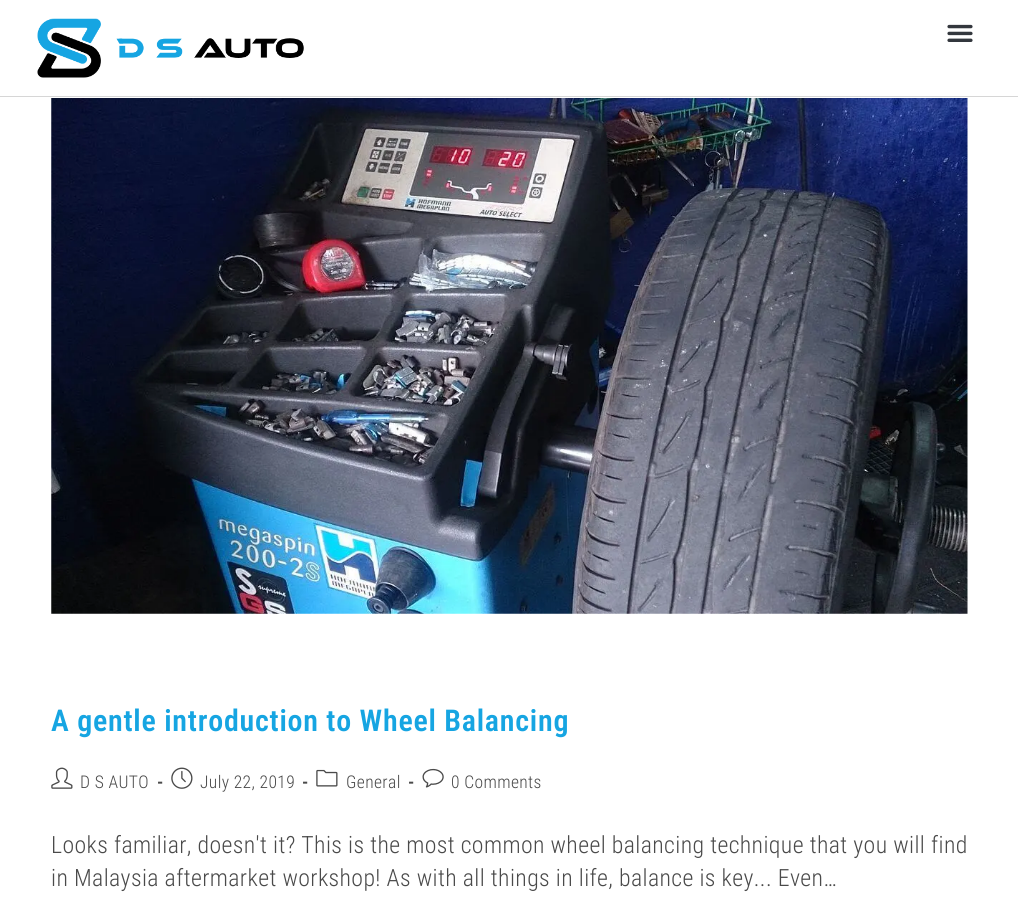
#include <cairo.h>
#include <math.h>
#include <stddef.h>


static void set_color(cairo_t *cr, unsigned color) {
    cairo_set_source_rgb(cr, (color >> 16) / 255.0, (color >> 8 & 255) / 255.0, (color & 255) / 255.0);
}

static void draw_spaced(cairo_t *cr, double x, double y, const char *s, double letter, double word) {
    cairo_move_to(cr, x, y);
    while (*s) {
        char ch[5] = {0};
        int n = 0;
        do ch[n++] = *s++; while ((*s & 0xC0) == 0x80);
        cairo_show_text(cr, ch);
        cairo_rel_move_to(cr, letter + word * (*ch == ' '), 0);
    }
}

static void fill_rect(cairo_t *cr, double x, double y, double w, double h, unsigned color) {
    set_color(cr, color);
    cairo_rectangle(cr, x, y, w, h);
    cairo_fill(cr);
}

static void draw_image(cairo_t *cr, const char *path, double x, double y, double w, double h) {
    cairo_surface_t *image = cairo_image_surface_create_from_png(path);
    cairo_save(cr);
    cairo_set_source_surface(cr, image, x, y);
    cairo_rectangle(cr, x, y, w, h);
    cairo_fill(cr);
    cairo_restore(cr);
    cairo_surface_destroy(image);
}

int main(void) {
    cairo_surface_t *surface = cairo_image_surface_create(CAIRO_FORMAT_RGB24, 1018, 902);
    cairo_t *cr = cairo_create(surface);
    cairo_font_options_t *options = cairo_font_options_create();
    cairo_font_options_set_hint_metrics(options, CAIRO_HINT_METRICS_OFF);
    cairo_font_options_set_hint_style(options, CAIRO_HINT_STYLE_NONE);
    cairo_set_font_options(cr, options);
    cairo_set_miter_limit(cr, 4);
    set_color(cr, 0xFFFFFF);
    cairo_paint(cr);
    fill_rect(cr, 0, 96, 1018, 1, 0xD6D6D6);
    draw_image(cr, "assets/img1.png", 37, 18, 267, 60);
    draw_image(cr, "assets/img2.png", 947, 24, 26, 18);
    draw_image(cr, "assets/img3.png", 51, 98, 917, 516);
    cairo_select_font_face(cr, "Roboto Condensed SemiBold", CAIRO_FONT_SLANT_NORMAL, CAIRO_FONT_WEIGHT_NORMAL);
    cairo_set_font_size(cr, 30);
    set_color(cr, 0x16A5E2);
    draw_spaced(cr, 51, 731, "A gentle introduction to Wheel Balancing", 0.75, 0);
    draw_image(cr, "assets/img4.png", 51, 767, 22, 22);
    cairo_select_font_face(cr, "Roboto Condensed Light", CAIRO_FONT_SLANT_NORMAL, CAIRO_FONT_WEIGHT_NORMAL);
    cairo_set_font_size(cr, 17.5);
    set_color(cr, 0x4A4A4A);
    draw_spaced(cr, 80, 788, "D S AUTO", 0.38, 0);
    cairo_select_font_face(cr, "Roboto Condensed", CAIRO_FONT_SLANT_NORMAL, CAIRO_FONT_WEIGHT_BOLD);
    draw_spaced(cr, 157, 788, "-", 0.38, 0);
    draw_image(cr, "assets/img5.png", 171, 767, 22, 22);
    cairo_select_font_face(cr, "Roboto Condensed Light", CAIRO_FONT_SLANT_NORMAL, CAIRO_FONT_WEIGHT_NORMAL);
    draw_spaced(cr, 200, 788, "July 22, 2019", 0.38, 0);
    cairo_select_font_face(cr, "Roboto Condensed", CAIRO_FONT_SLANT_NORMAL, CAIRO_FONT_WEIGHT_BOLD);
    draw_spaced(cr, 302, 788, "-", 0.38, 0);
    draw_image(cr, "assets/img6.png", 316, 769, 22, 18);
    cairo_select_font_face(cr, "Roboto Condensed Light", CAIRO_FONT_SLANT_NORMAL, CAIRO_FONT_WEIGHT_NORMAL);
    draw_spaced(cr, 346, 788, "General", 0.38, 0);
    cairo_select_font_face(cr, "Roboto Condensed", CAIRO_FONT_SLANT_NORMAL, CAIRO_FONT_WEIGHT_BOLD);
    draw_spaced(cr, 408, 788, "-", 0.38, 0);
    draw_image(cr, "assets/img7.png", 422, 768, 22, 20);
    cairo_select_font_face(cr, "Roboto Condensed Light", CAIRO_FONT_SLANT_NORMAL, CAIRO_FONT_WEIGHT_NORMAL);
    draw_spaced(cr, 451, 788, "0 Comments", 0.38, 0);
    cairo_set_font_size(cr, 23.75);
    draw_spaced(cr, 51, 853, "Looks familiar, doesn't it? This is the most common wheel balancing technique that you will find", 0.38, 0);
    draw_spaced(cr, 51, 886, "in Malaysia aftermarket workshop! As with all things in life, balance is key... Even…", 0.38, 0);
    cairo_surface_write_to_png(surface, "output.png");
    cairo_font_options_destroy(options);
    cairo_destroy(cr);
    cairo_surface_destroy(surface);
    return 0;
}
